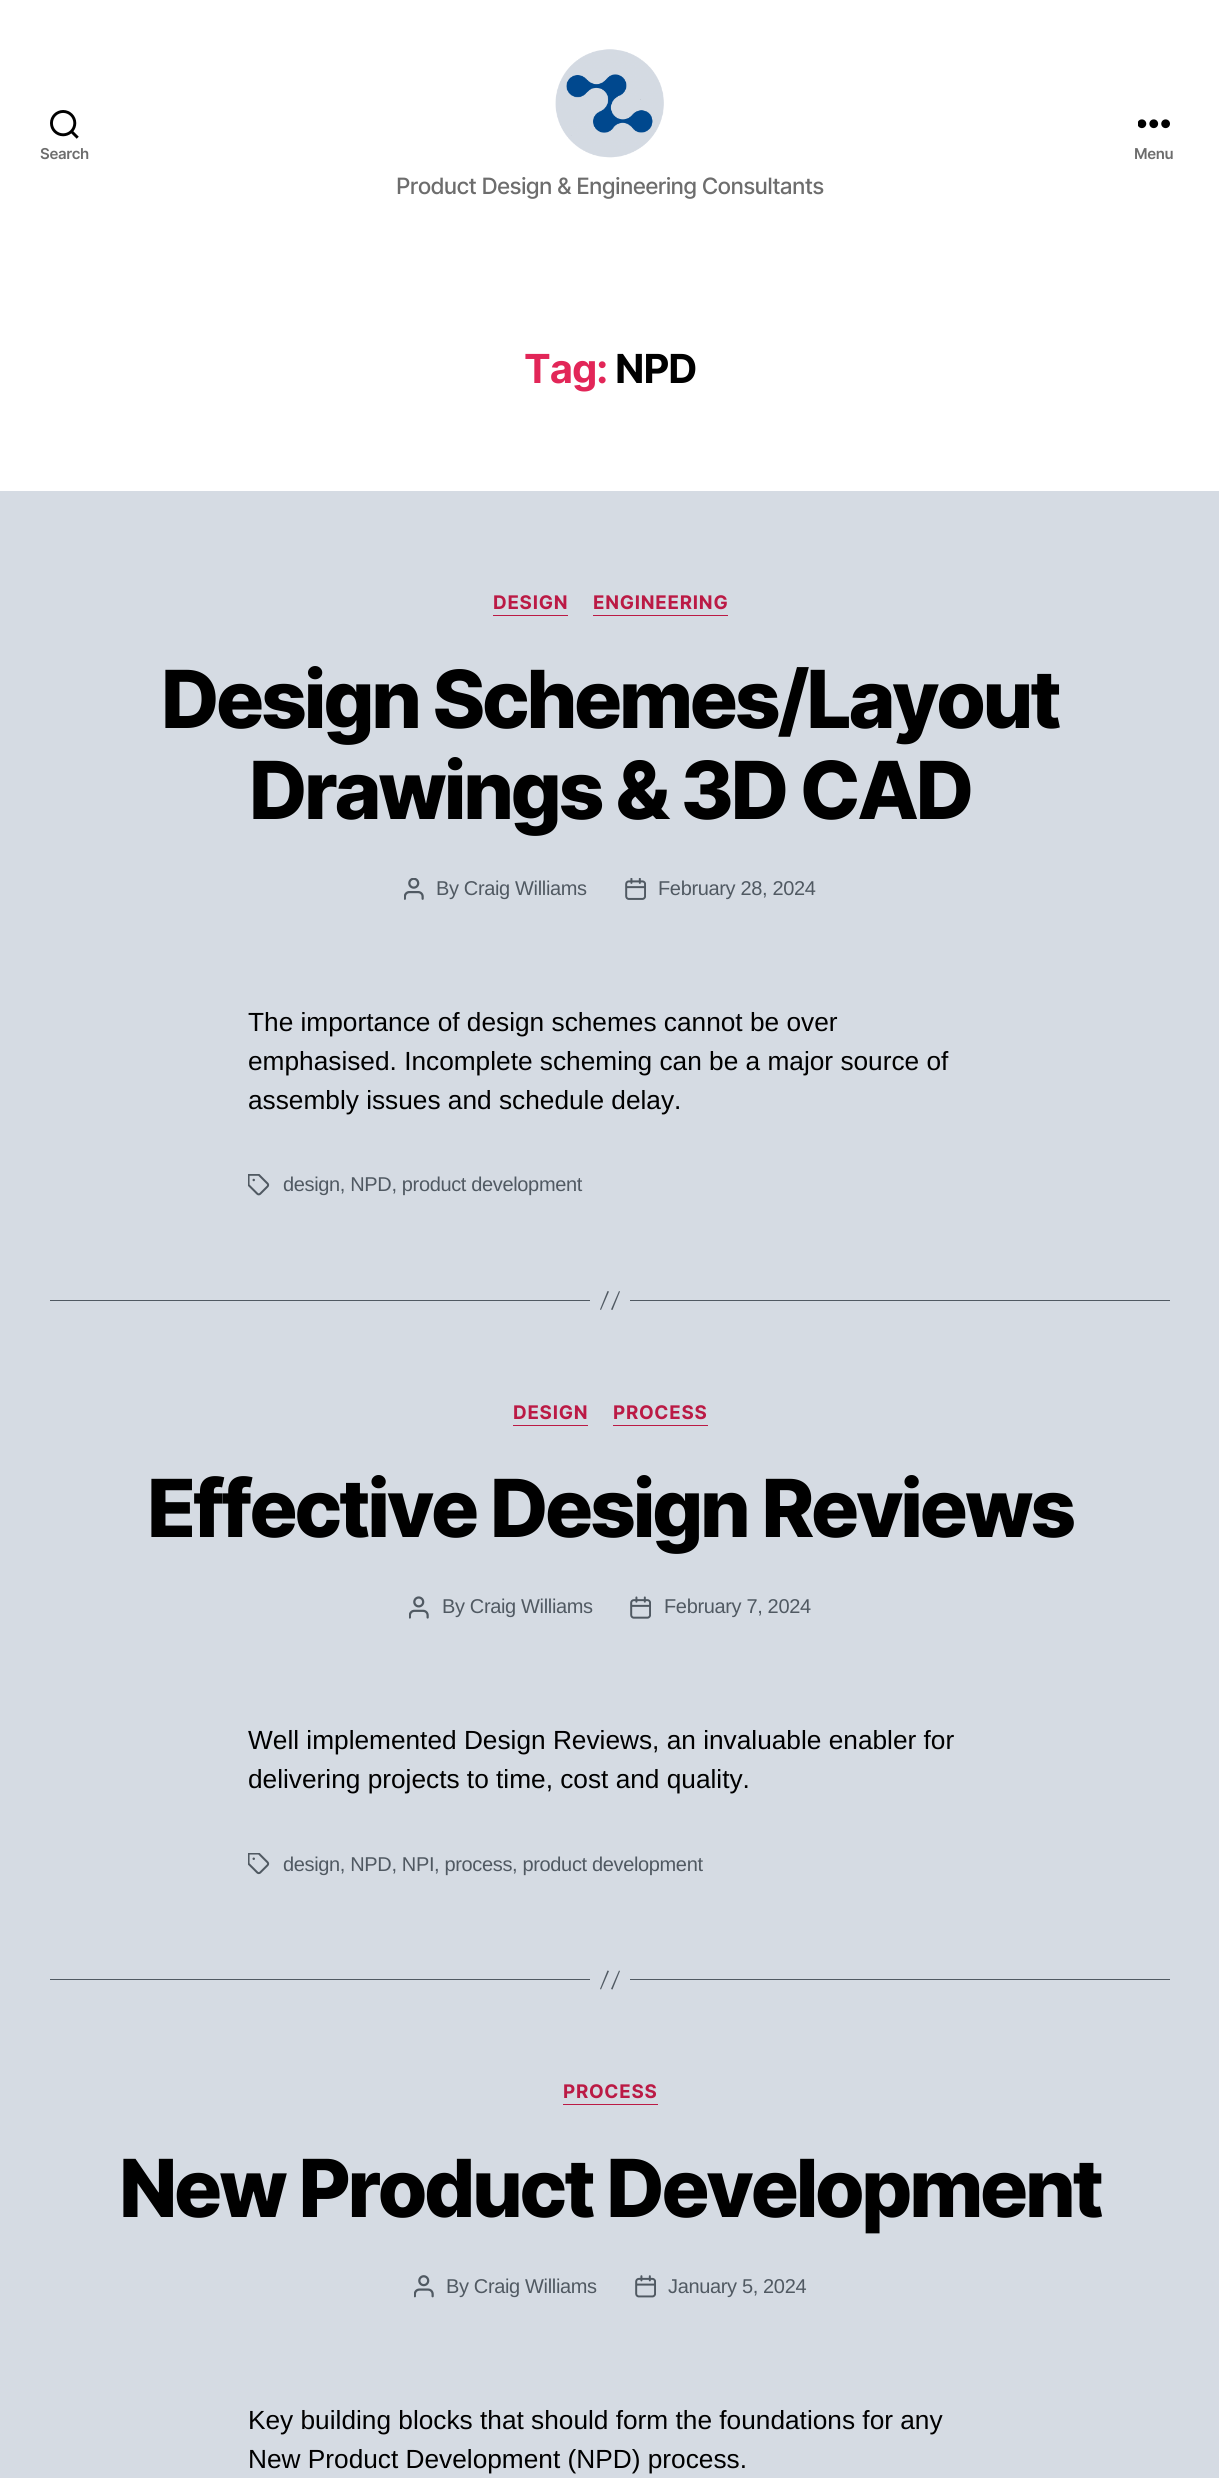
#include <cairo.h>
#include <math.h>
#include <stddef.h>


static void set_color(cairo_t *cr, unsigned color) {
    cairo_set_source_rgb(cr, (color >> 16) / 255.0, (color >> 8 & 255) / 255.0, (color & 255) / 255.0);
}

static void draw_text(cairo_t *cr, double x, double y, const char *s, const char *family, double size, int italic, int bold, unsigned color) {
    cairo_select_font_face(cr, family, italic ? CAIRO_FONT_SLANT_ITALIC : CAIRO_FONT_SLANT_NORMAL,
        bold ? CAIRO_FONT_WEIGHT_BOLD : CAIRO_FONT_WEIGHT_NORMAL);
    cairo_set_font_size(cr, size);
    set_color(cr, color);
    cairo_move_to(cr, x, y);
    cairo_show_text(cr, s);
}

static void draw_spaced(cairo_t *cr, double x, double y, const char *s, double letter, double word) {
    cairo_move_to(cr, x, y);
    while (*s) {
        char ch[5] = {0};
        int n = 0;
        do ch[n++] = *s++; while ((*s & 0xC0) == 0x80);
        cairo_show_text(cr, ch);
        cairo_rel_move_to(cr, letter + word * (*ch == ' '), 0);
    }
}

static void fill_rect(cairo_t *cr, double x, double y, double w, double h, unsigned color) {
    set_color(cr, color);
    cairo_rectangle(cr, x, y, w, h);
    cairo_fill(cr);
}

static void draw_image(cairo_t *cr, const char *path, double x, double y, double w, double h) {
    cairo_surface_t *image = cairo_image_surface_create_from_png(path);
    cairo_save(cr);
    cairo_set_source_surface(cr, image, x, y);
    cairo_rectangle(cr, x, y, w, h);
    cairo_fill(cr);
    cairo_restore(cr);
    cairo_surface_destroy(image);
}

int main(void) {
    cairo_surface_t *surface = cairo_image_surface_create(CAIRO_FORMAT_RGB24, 1219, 2478);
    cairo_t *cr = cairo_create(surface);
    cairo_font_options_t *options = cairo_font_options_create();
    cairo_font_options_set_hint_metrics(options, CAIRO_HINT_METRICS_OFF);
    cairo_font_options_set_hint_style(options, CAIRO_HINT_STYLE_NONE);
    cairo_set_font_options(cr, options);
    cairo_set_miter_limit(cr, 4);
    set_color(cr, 0xD5DBE3);
    cairo_paint(cr);
    fill_rect(cr, 0, 0, 1219, 491, 0xFFFFFF);
    draw_image(cr, "assets/img1.png", 50, 110, 29, 29);
    cairo_select_font_face(cr, "Inter SemiBold", CAIRO_FONT_SLANT_NORMAL, CAIRO_FONT_WEIGHT_NORMAL);
    cairo_set_font_size(cr, 15);
    set_color(cr, 0x6D6D6D);
    draw_spaced(cr, 40, 159, "Search", -0.35, 0);
    draw_image(cr, "assets/img2.png", 1138, 119, 32, 10);
    draw_spaced(cr, 1134, 159, "Menu", -0.35, 0);
    draw_image(cr, "assets/img3.png", 555, 49, 109, 109);
    cairo_select_font_face(cr, "Inter Medium", CAIRO_FONT_SLANT_NORMAL, CAIRO_FONT_WEIGHT_NORMAL);
    cairo_set_font_size(cr, 22.5);
    draw_spaced(cr, 396, 194, "Product Design & Engineering Consultants", -0.7, 0);
    cairo_select_font_face(cr, "Inter", CAIRO_FONT_SLANT_NORMAL, CAIRO_FONT_WEIGHT_BOLD);
    cairo_set_font_size(cr, 40);
    set_color(cr, 0xE22658);
    draw_spaced(cr, 524, 383, "Tag:", -1, 0);
    set_color(cr, 0x000000);
    draw_spaced(cr, 615, 383, "NPD", -1, 0);
    fill_rect(cr, 493, 615, 75, 1, 0xBB1A45);
    cairo_set_font_size(cr, 18.75);
    draw_spaced(cr, 493, 609, "DESIGN", 0.75, 0);
    fill_rect(cr, 593, 615, 135, 1, 0xBB1A45);
    draw_spaced(cr, 593, 609, "ENGINEERING", 0.75, 0);
    cairo_select_font_face(cr, "Inter ExtraBold", CAIRO_FONT_SLANT_NORMAL, CAIRO_FONT_WEIGHT_NORMAL);
    cairo_set_font_size(cr, 80);
    set_color(cr, 0x000000);
    draw_spaced(cr, 161, 728, "Design Schemes/Layout", -3.3, 0);
    draw_spaced(cr, 249, 819, "Drawings & 3D CAD", -3.3, 0);
    draw_image(cr, "assets/img4.png", 404, 878, 20, 22);
    cairo_select_font_face(cr, "Liberation Sans", CAIRO_FONT_SLANT_NORMAL, CAIRO_FONT_WEIGHT_NORMAL);
    cairo_set_font_size(cr, 20);
    set_color(cr, 0x505962);
    draw_spaced(cr, 436, 895, "By Craig Williams", -0.35, 0);
    draw_image(cr, "assets/img5.png", 625, 878, 21, 22);
    draw_spaced(cr, 658, 895, "February 28, 2024", -0.35, 0);
    draw_text(cr, 248, 1031, "The importance of design schemes cannot be over", "Liberation Sans", 26.25, 0, 0, 0x000000);
    draw_text(cr, 248, 1070, "emphasised. Incomplete scheming can be a major source of", "Liberation Sans", 26.25, 0, 0, 0x000000);
    draw_text(cr, 248, 1109, "assembly issues and schedule delay.", "Liberation Sans", 26.25, 0, 0, 0x000000);
    draw_image(cr, "assets/img6.png", 248, 1174, 22, 22);
    cairo_set_font_size(cr, 20);
    set_color(cr, 0x505962);
    draw_spaced(cr, 283, 1191, "design, NPD, product development", -0.35, 0);
    fill_rect(cr, 630, 1300, 540, 1, 0x505962);
    fill_rect(cr, 50, 1300, 540, 1, 0x505962);
    cairo_new_path(cr);
    cairo_move_to(cr, 607.5, 1291);
    cairo_line_to(cr, 609, 1291.5);
    cairo_line_to(cr, 601, 1310);
    cairo_line_to(cr, 600, 1309.5);
    cairo_close_path(cr);
    cairo_move_to(cr, 619, 1291);
    cairo_line_to(cr, 620, 1291.5);
    cairo_line_to(cr, 612.5, 1310);
    cairo_line_to(cr, 611, 1309.5);
    cairo_close_path(cr);
    cairo_fill(cr);
    fill_rect(cr, 513, 1425, 75, 1, 0xBB1A45);
    cairo_select_font_face(cr, "Inter", CAIRO_FONT_SLANT_NORMAL, CAIRO_FONT_WEIGHT_BOLD);
    cairo_set_font_size(cr, 18.75);
    draw_spaced(cr, 513, 1419, "DESIGN", 0.75, 0);
    fill_rect(cr, 613, 1425, 95, 1, 0xBB1A45);
    draw_spaced(cr, 613, 1419, "PROCESS", 0.75, 0);
    cairo_select_font_face(cr, "Inter ExtraBold", CAIRO_FONT_SLANT_NORMAL, CAIRO_FONT_WEIGHT_NORMAL);
    cairo_set_font_size(cr, 80);
    set_color(cr, 0x000000);
    draw_spaced(cr, 147, 1537, "Effective Design Reviews", -3.3, 0);
    draw_image(cr, "assets/img7.png", 409, 1596, 20, 23);
    cairo_select_font_face(cr, "Liberation Sans", CAIRO_FONT_SLANT_NORMAL, CAIRO_FONT_WEIGHT_NORMAL);
    cairo_set_font_size(cr, 20);
    set_color(cr, 0x505962);
    draw_spaced(cr, 442, 1613, "By Craig Williams", -0.35, 0);
    draw_image(cr, "assets/img8.png", 630, 1596, 21, 23);
    draw_spaced(cr, 664, 1613, "February 7, 2024", -0.35, 0);
    draw_text(cr, 248, 1749, "Well implemented Design Reviews, an invaluable enabler for", "Liberation Sans", 26.25, 0, 0, 0x000000);
    draw_text(cr, 248, 1788, "delivering projects to time, cost and quality.", "Liberation Sans", 26.25, 0, 0, 0x000000);
    draw_image(cr, "assets/img9.png", 248, 1853, 22, 22);
    cairo_set_font_size(cr, 20);
    set_color(cr, 0x505962);
    draw_spaced(cr, 283, 1871, "design, NPD, NPI, process, product development", -0.35, 0);
    fill_rect(cr, 630, 1979, 540, 1, 0x505962);
    fill_rect(cr, 50, 1979, 540, 1, 0x505962);
    cairo_new_path(cr);
    cairo_move_to(cr, 607.5, 1970.5);
    cairo_line_to(cr, 609, 1971);
    cairo_line_to(cr, 601, 1989.5);
    cairo_line_to(cr, 600, 1989);
    cairo_close_path(cr);
    cairo_move_to(cr, 619, 1970.5);
    cairo_line_to(cr, 620, 1971);
    cairo_line_to(cr, 612.5, 1989.5);
    cairo_line_to(cr, 611, 1989);
    cairo_close_path(cr);
    cairo_fill(cr);
    fill_rect(cr, 563, 2104, 95, 1, 0xBB1A45);
    cairo_select_font_face(cr, "Inter", CAIRO_FONT_SLANT_NORMAL, CAIRO_FONT_WEIGHT_BOLD);
    cairo_set_font_size(cr, 18.75);
    draw_spaced(cr, 563, 2098, "PROCESS", 0.75, 0);
    cairo_select_font_face(cr, "Inter ExtraBold", CAIRO_FONT_SLANT_NORMAL, CAIRO_FONT_WEIGHT_NORMAL);
    cairo_set_font_size(cr, 80);
    set_color(cr, 0x000000);
    draw_spaced(cr, 119, 2217, "New Product Development", -3.3, 0);
    draw_image(cr, "assets/img10.png", 414, 2275, 20, 23);
    cairo_select_font_face(cr, "Liberation Sans", CAIRO_FONT_SLANT_NORMAL, CAIRO_FONT_WEIGHT_NORMAL);
    cairo_set_font_size(cr, 20);
    set_color(cr, 0x505962);
    draw_spaced(cr, 446, 2293, "By Craig Williams", -0.35, 0);
    draw_image(cr, "assets/img11.png", 635, 2275, 21, 23);
    draw_spaced(cr, 668, 2293, "January 5, 2024", -0.35, 0);
    draw_text(cr, 248, 2429, "Key building blocks that should form the foundations for any", "Liberation Sans", 26.25, 0, 0, 0x000000);
    draw_text(cr, 248, 2468, "New Product Development (NPD) process.", "Liberation Sans", 26.25, 0, 0, 0x000000);
    cairo_surface_write_to_png(surface, "output.png");
    cairo_font_options_destroy(options);
    cairo_destroy(cr);
    cairo_surface_destroy(surface);
    return 0;
}
